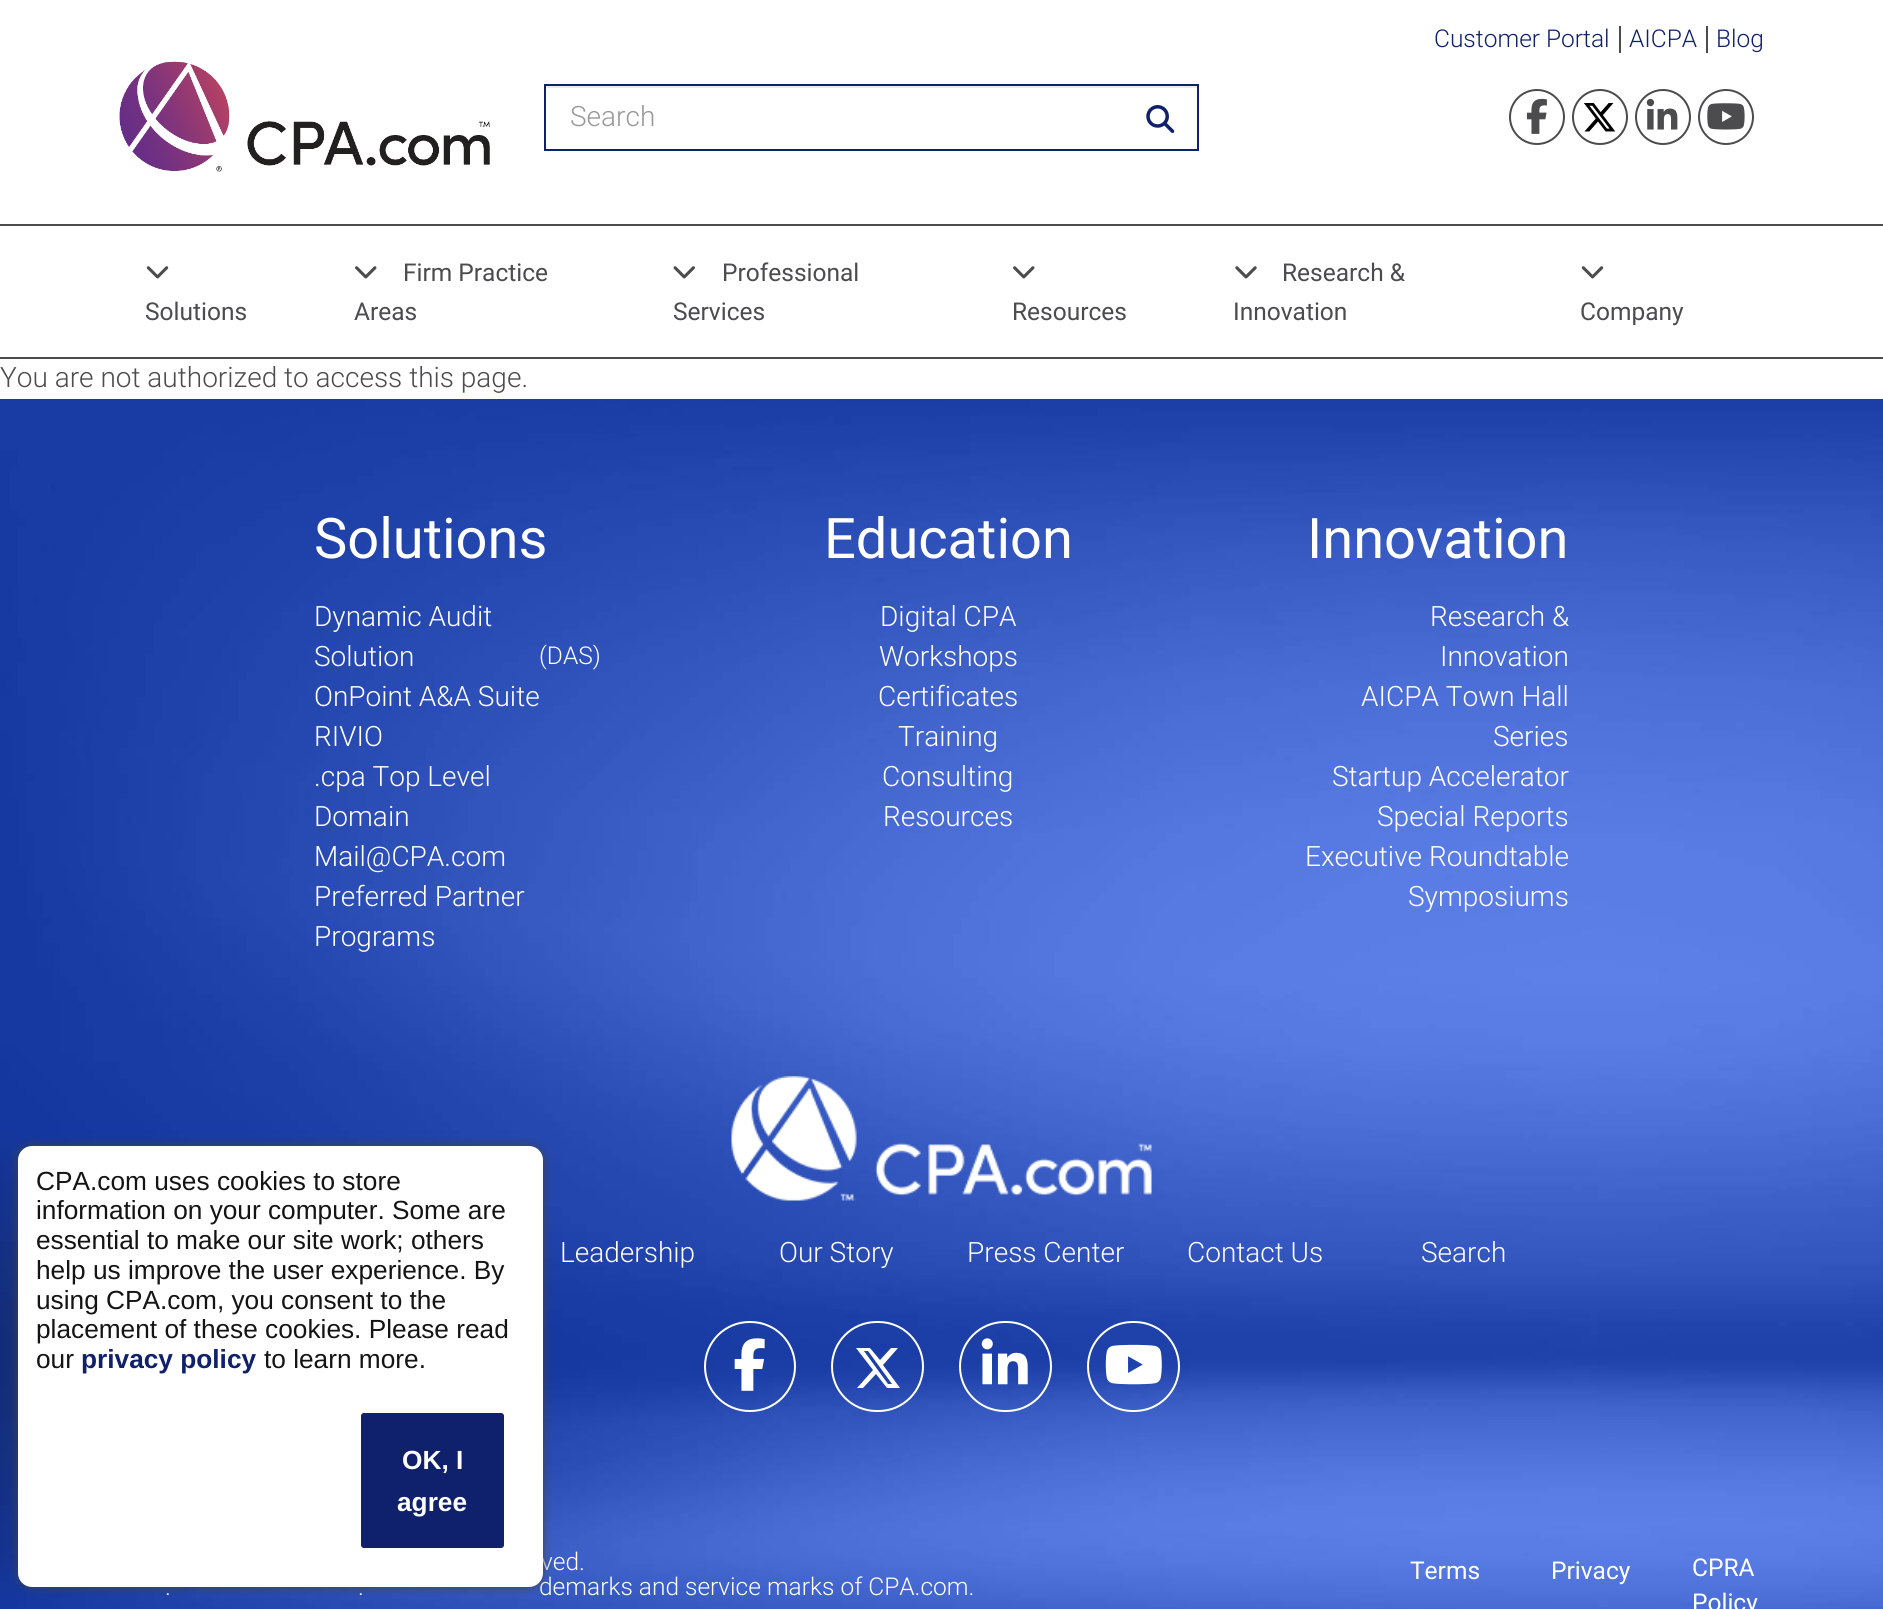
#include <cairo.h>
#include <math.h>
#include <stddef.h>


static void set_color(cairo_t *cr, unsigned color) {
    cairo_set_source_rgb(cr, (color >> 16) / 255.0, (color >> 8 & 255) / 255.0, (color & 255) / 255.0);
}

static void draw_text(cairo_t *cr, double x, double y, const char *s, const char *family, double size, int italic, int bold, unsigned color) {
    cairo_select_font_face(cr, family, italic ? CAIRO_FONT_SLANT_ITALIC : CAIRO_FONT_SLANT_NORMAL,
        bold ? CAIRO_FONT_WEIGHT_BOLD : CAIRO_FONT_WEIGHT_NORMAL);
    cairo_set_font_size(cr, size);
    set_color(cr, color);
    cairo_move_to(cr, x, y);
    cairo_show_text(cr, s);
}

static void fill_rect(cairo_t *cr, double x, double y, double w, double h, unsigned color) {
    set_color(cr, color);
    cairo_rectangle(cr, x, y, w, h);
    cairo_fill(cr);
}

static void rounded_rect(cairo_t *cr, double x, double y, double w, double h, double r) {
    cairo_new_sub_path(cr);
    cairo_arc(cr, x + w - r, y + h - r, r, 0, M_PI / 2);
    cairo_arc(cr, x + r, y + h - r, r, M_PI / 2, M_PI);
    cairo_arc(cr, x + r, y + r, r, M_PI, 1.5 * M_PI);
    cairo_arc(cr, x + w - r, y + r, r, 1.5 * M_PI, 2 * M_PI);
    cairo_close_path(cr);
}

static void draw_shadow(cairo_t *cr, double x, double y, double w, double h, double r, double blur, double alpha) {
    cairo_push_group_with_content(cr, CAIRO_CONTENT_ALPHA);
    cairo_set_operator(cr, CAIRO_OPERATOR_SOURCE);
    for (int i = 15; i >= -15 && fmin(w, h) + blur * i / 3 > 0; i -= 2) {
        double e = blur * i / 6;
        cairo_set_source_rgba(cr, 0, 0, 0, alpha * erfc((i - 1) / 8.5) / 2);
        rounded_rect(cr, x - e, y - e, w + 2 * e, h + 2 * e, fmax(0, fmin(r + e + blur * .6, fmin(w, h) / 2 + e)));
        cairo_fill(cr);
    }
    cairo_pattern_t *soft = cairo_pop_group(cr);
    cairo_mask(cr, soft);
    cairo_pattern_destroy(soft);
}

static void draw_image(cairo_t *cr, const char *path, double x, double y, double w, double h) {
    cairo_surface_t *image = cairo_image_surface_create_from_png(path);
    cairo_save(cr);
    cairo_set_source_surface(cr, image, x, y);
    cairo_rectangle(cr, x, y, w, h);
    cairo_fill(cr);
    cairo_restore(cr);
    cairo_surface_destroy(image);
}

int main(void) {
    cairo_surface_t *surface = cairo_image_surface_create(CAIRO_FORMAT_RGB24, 1883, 1609);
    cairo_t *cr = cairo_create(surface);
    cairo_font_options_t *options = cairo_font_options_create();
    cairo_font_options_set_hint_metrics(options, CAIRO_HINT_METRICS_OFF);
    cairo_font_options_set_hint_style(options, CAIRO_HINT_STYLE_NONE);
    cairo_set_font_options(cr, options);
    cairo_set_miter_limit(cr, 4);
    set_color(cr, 0xFFFFFF);
    cairo_paint(cr);
    fill_rect(cr, 0, 224, 1883, 2, 0x4C4C4E);
    draw_text(cr, 1434, 47, "Customer Portal", "Roboto Light", 24.5, 0, 0, 0x0F206C);
    fill_rect(cr, 1619, 26, 2, 27, 0x4C4C4E);
    draw_text(cr, 1629, 47, "AICPA", "Roboto Light", 24.5, 0, 0, 0x0F206C);
    fill_rect(cr, 1706, 26, 2, 27, 0x4C4C4E);
    draw_text(cr, 1716, 47, "Blog", "Roboto Light", 24.5, 0, 0, 0x0F206C);
    draw_image(cr, "assets/img1.png", 119, 61, 371, 111);
    fill_rect(cr, 546, 86, 651, 2, 0xECECEC);
    cairo_rectangle(cr, 545, 85, 653, 65);
    set_color(cr, 0x0F206C);
    cairo_stroke(cr);
    draw_text(cr, 570, 126, "Search", "Roboto Light", 28, 0, 0, 0x999999);
    draw_image(cr, "assets/img2.png", 1146, 105, 29, 28);
    cairo_arc(cr, 1537, 117, 27, 0, 2 * M_PI);
    set_color(cr, 0x4C4C4E);
    cairo_stroke(cr);
    draw_image(cr, "assets/img3.png", 1526, 98, 21, 36);
    cairo_arc(cr, 1600, 117, 27, 0, 2 * M_PI);
    cairo_stroke(cr);
    draw_image(cr, "assets/img4.png", 1584, 103, 32, 29);
    cairo_arc(cr, 1663, 117, 27, 0, 2 * M_PI);
    cairo_stroke(cr);
    draw_image(cr, "assets/img5.png", 1646, 98, 32, 32);
    cairo_arc(cr, 1726, 117, 27, 0, 2 * M_PI);
    cairo_stroke(cr);
    draw_image(cr, "assets/img6.png", 1707, 103, 38, 27);
    fill_rect(cr, 0, 357, 1883, 2, 0x4C4C4E);
    draw_image(cr, "assets/img7.png", 146, 266, 23, 13);
    draw_text(cr, 145, 320, "Solutions", "Roboto", 24.5, 0, 0, 0x4C4C4E);
    draw_image(cr, "assets/img8.png", 355, 266, 22, 13);
    draw_text(cr, 403, 281, "Firm Practice", "Roboto", 24.5, 0, 0, 0x4C4C4E);
    draw_text(cr, 354, 320, "Areas", "Roboto", 24.5, 0, 0, 0x4C4C4E);
    draw_image(cr, "assets/img9.png", 673, 266, 22, 13);
    draw_text(cr, 722, 281, "Professional", "Roboto", 24.5, 0, 0, 0x4C4C4E);
    draw_text(cr, 673, 320, "Services", "Roboto", 24.5, 0, 0, 0x4C4C4E);
    draw_image(cr, "assets/img8.png", 1013, 266, 22, 13);
    draw_text(cr, 1012, 320, "Resources", "Roboto", 24.5, 0, 0, 0x4C4C4E);
    draw_image(cr, "assets/img10.png", 1235, 266, 22, 13);
    draw_text(cr, 1282, 281, "Research &", "Roboto", 24.5, 0, 0, 0x4C4C4E);
    draw_text(cr, 1233, 320, "Innovation", "Roboto", 24.5, 0, 0, 0x4C4C4E);
    draw_image(cr, "assets/img7.png", 1581, 266, 23, 13);
    draw_text(cr, 1580, 320, "Company", "Roboto", 24.5, 0, 0, 0x4C4C4E);
    draw_text(cr, 0, 387, "You are not authorized to access this page.", "Roboto Light", 28, 0, 0, 0x4C4C4E);
    draw_image(cr, "assets/img11.png", 0, 399, 1883, 1210);
    draw_text(cr, 314, 558, "Solutions", "Roboto", 56, 0, 0, 0xFFFFFF);
    draw_text(cr, 314, 626, "Dynamic Audit", "Roboto Light", 28, 0, 0, 0xFFFFFF);
    draw_text(cr, 314, 666, "Solution", "Roboto Light", 28, 0, 0, 0xFFFFFF);
    draw_text(cr, 539, 664, "(DAS)", "Roboto Light", 24.5, 0, 0, 0xFFFFFF);
    draw_text(cr, 314, 706, "OnPoint A&A Suite", "Roboto Light", 28, 0, 0, 0xFFFFFF);
    draw_text(cr, 314, 746, "RIVIO", "Roboto Light", 28, 0, 0, 0xFFFFFF);
    draw_text(cr, 314, 786, ".cpa Top Level", "Roboto Light", 28, 0, 0, 0xFFFFFF);
    draw_text(cr, 314, 826, "Domain", "Roboto Light", 28, 0, 0, 0xFFFFFF);
    draw_text(cr, 314, 866, "Mail@CPA.com", "Roboto Light", 28, 0, 0, 0xFFFFFF);
    draw_text(cr, 314, 906, "Preferred Partner", "Roboto Light", 28, 0, 0, 0xFFFFFF);
    draw_text(cr, 314, 946, "Programs", "Roboto Light", 28, 0, 0, 0xFFFFFF);
    draw_text(cr, 824, 558, "Education", "Roboto", 56, 0, 0, 0xFFFFFF);
    draw_text(cr, 880, 626, "Digital CPA", "Roboto Light", 28, 0, 0, 0xFFFFFF);
    draw_text(cr, 879, 666, "Workshops", "Roboto Light", 28, 0, 0, 0xFFFFFF);
    draw_text(cr, 878, 706, "Certificates", "Roboto Light", 28, 0, 0, 0xFFFFFF);
    draw_text(cr, 898, 746, "Training", "Roboto Light", 28, 0, 0, 0xFFFFFF);
    draw_text(cr, 882, 786, "Consulting", "Roboto Light", 28, 0, 0, 0xFFFFFF);
    draw_text(cr, 883, 826, "Resources", "Roboto Light", 28, 0, 0, 0xFFFFFF);
    draw_text(cr, 1307, 558, "Innovation", "Roboto", 56, 0, 0, 0xFFFFFF);
    draw_text(cr, 1430, 626, "Research &", "Roboto Light", 28, 0, 0, 0xFFFFFF);
    draw_text(cr, 1440, 666, "Innovation", "Roboto Light", 28, 0, 0, 0xFFFFFF);
    draw_text(cr, 1361, 706, "AICPA Town Hall", "Roboto Light", 28, 0, 0, 0xFFFFFF);
    draw_text(cr, 1493, 746, "Series", "Roboto Light", 28, 0, 0, 0xFFFFFF);
    draw_text(cr, 1332, 786, "Startup Accelerator", "Roboto Light", 28, 0, 0, 0xFFFFFF);
    draw_text(cr, 1377, 826, "Special Reports", "Roboto Light", 28, 0, 0, 0xFFFFFF);
    draw_text(cr, 1305, 866, "Executive Roundtable", "Roboto Light", 28, 0, 0, 0xFFFFFF);
    draw_text(cr, 1408, 906, "Symposiums", "Roboto Light", 28, 0, 0, 0xFFFFFF);
    draw_image(cr, "assets/img12.png", 731, 1076, 421, 125);
    draw_text(cr, 560, 1262, "Leadership", "Roboto Light", 28, 0, 0, 0xFFFFFF);
    draw_text(cr, 779, 1262, "Our Story", "Roboto Light", 28, 0, 0, 0xFFFFFF);
    draw_text(cr, 967, 1262, "Press Center", "Roboto Light", 28, 0, 0, 0xFFFFFF);
    draw_text(cr, 1187, 1262, "Contact Us", "Roboto Light", 28, 0, 0, 0xFFFFFF);
    draw_text(cr, 1421, 1262, "Search", "Roboto Light", 28, 0, 0, 0xFFFFFF);
    rounded_rect(cr, 705, 1322, 90, 89, 44.5);
    cairo_stroke(cr);
    draw_image(cr, "assets/img13.png", 734, 1338, 31, 53);
    rounded_rect(cr, 832, 1322, 91, 89, 44.5);
    cairo_stroke(cr);
    cairo_new_path(cr);
    cairo_move_to(cr, 891, 1348);
    cairo_line_to(cr, 898, 1348);
    cairo_line_to(cr, 883, 1365);
    cairo_line_to(cr, 900, 1388);
    cairo_line_to(cr, 887, 1388);
    cairo_line_to(cr, 876, 1374);
    cairo_line_to(cr, 863, 1388);
    cairo_line_to(cr, 857, 1388);
    cairo_line_to(cr, 873, 1370);
    cairo_line_to(cr, 856, 1348);
    cairo_line_to(cr, 870, 1348);
    cairo_line_to(cr, 880, 1360);
    cairo_close_path(cr);
    cairo_move_to(cr, 888, 1384);
    cairo_line_to(cr, 892, 1384);
    cairo_line_to(cr, 868, 1351);
    cairo_line_to(cr, 864, 1351);
    cairo_close_path(cr);
    cairo_fill(cr);
    rounded_rect(cr, 960, 1322, 91, 89, 44.5);
    cairo_stroke(cr);
    draw_image(cr, "assets/img14.png", 981, 1338, 47, 47);
    rounded_rect(cr, 1088, 1322, 91, 89, 44.5);
    cairo_stroke(cr);
    draw_image(cr, "assets/img15.png", 1105, 1344, 57, 41);
    draw_text(cr, 541, 1570, "ved.", "Roboto Light", 24.5, 0, 0, 0xFFFFFF);
    draw_text(cr, 165, 1595, ".", "Roboto Light", 24.5, 0, 0, 0xFFFFFF);
    draw_text(cr, 358, 1595, ".", "Roboto Light", 24.5, 0, 0, 0xFFFFFF);
    draw_text(cr, 539, 1595, "demarks and service marks of CPA.com.", "Roboto Light", 24.5, 0, 0, 0xFFFFFF);
    draw_text(cr, 1410, 1579, "Terms", "Roboto", 24.5, 0, 0, 0xFFFFFF);
    draw_text(cr, 1551, 1579, "Privacy", "Roboto", 24.5, 0, 0, 0xFFFFFF);
    draw_text(cr, 1692, 1576, "CPRA", "Roboto", 24.5, 0, 0, 0xFFFFFF);
    draw_text(cr, 1692, 1611, "Policy", "Roboto", 24.5, 0, 0, 0xFFFFFF);
    set_color(cr, 0x444444);
    draw_shadow(cr, 18, 1146, 525, 441, 14, 4.5, 1);
    set_color(cr, 0xFFFFFF);
    rounded_rect(cr, 18, 1146, 525, 441, 14);
    cairo_fill(cr);
    draw_text(cr, 36, 1190, "CPA.com uses cookies to store", "Liberation Sans", 26.25, 0, 0, 0x141414);
    draw_text(cr, 36, 1219, "information on your computer. Some are", "Liberation Sans", 26.25, 0, 0, 0x141414);
    draw_text(cr, 36, 1249, "essential to make our site work; others", "Liberation Sans", 26.25, 0, 0, 0x141414);
    draw_text(cr, 36, 1279, "help us improve the user experience. By", "Liberation Sans", 26.25, 0, 0, 0x141414);
    draw_text(cr, 36, 1309, "using CPA.com, you consent to the", "Liberation Sans", 26.25, 0, 0, 0x141414);
    draw_text(cr, 36, 1338, "placement of these cookies. Please read", "Liberation Sans", 26.25, 0, 0, 0x141414);
    draw_text(cr, 36, 1368, "our", "Liberation Sans", 26.25, 0, 0, 0x141414);
    draw_text(cr, 81, 1368, "privacy policy", "Liberation Sans", 26.25, 0, 1, 0x0F206C);
    draw_text(cr, 264, 1368, "to learn more.", "Liberation Sans", 26.25, 0, 0, 0x141414);
    set_color(cr, 0x0F206C);
    rounded_rect(cr, 359, 1411, 147, 139, 5);
    cairo_fill_preserve(cr);
    set_color(cr, 0xFFFFFF);
    cairo_set_line_width(cr, 4);
    cairo_stroke(cr);
    draw_text(cr, 402, 1469, "OK, I", "Liberation Sans", 26.25, 0, 1, 0xFFFFFF);
    draw_text(cr, 397, 1511, "agree", "Liberation Sans", 26.25, 0, 1, 0xFFFFFF);
    cairo_surface_write_to_png(surface, "output.png");
    cairo_font_options_destroy(options);
    cairo_destroy(cr);
    cairo_surface_destroy(surface);
    return 0;
}
